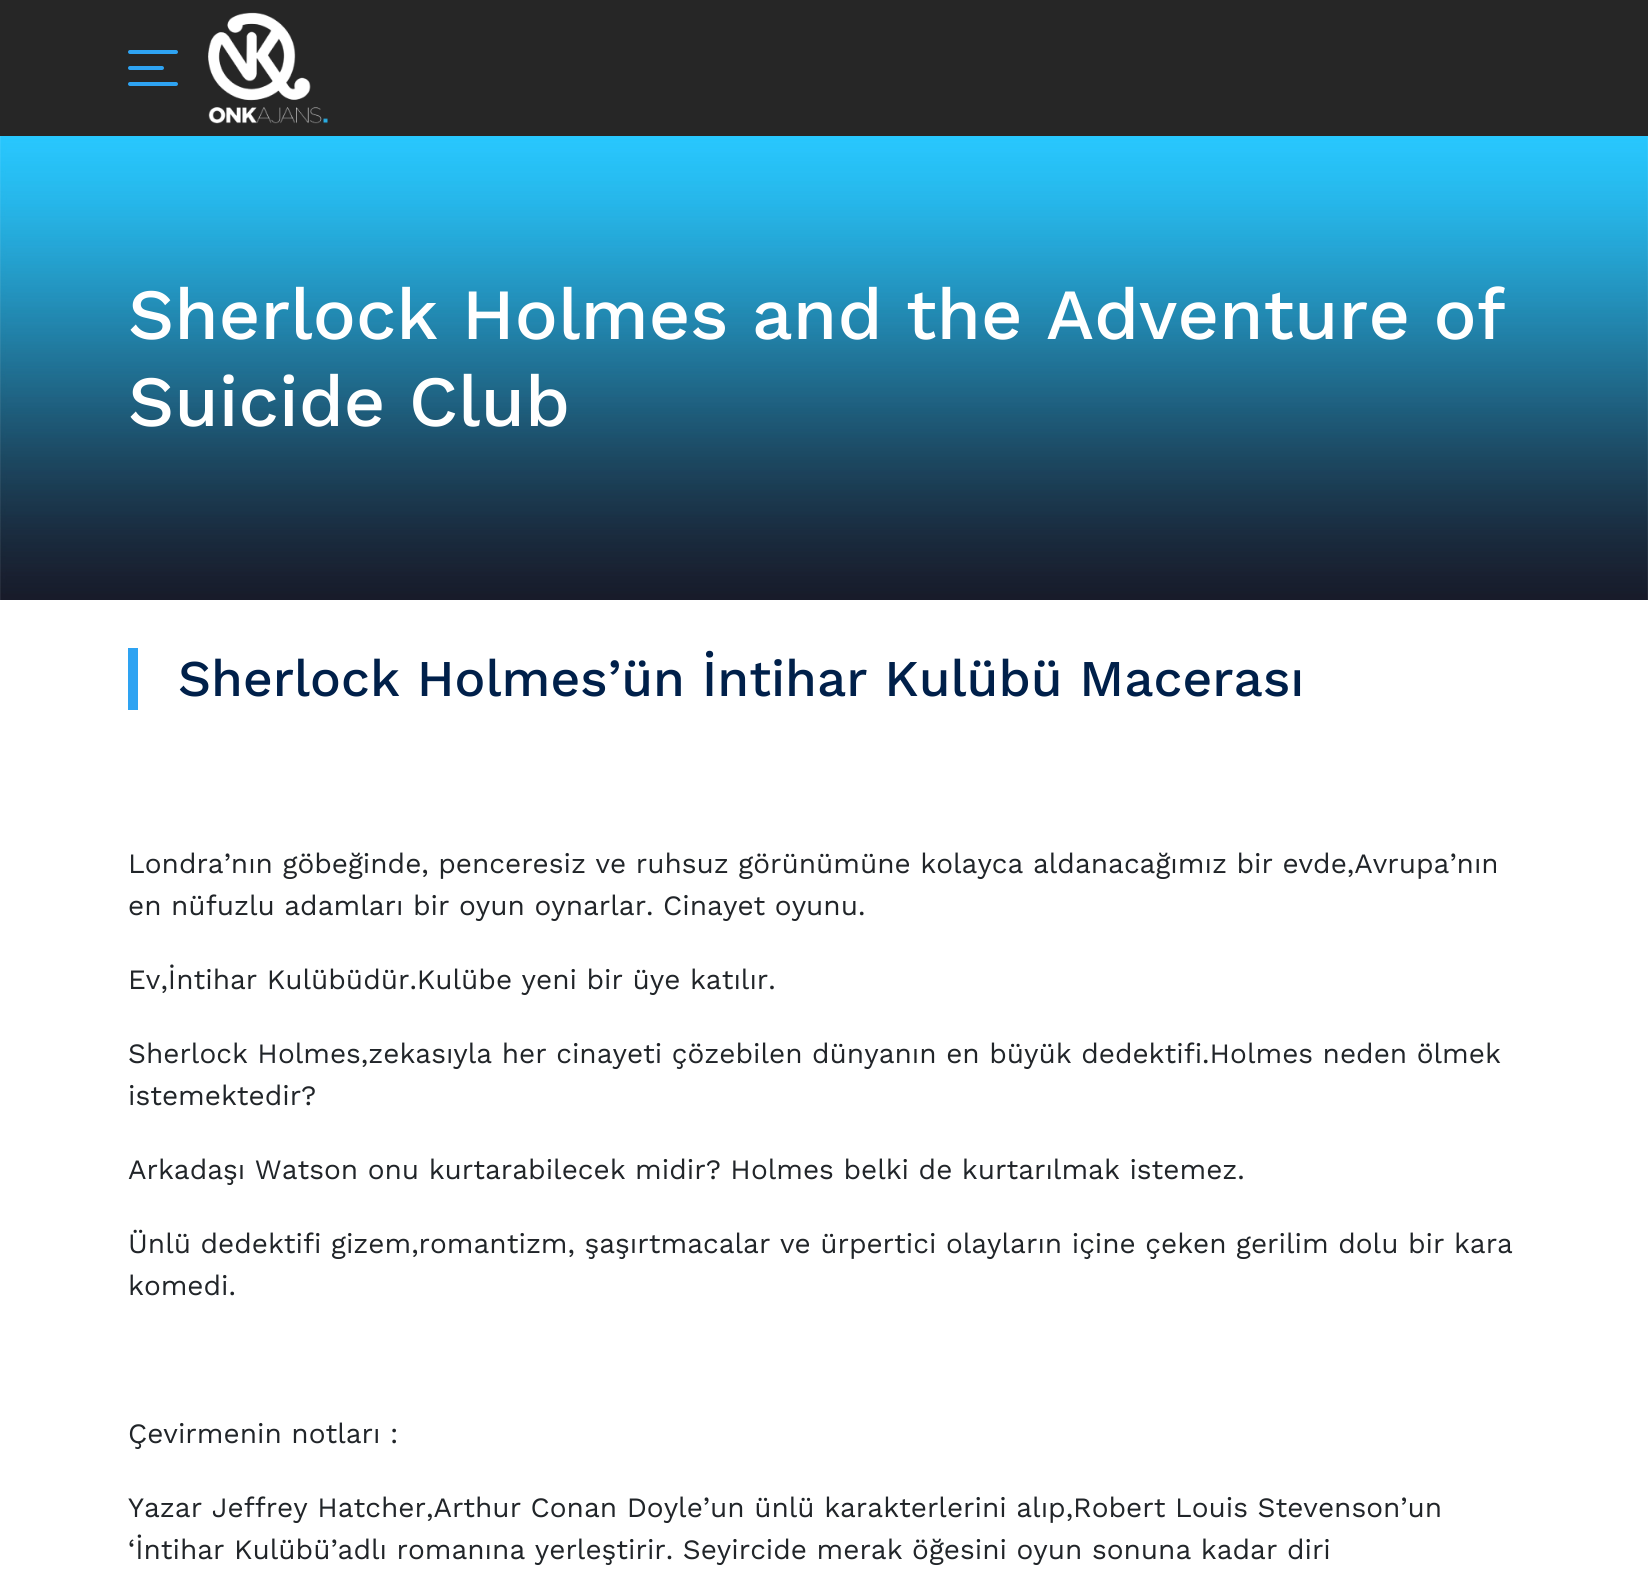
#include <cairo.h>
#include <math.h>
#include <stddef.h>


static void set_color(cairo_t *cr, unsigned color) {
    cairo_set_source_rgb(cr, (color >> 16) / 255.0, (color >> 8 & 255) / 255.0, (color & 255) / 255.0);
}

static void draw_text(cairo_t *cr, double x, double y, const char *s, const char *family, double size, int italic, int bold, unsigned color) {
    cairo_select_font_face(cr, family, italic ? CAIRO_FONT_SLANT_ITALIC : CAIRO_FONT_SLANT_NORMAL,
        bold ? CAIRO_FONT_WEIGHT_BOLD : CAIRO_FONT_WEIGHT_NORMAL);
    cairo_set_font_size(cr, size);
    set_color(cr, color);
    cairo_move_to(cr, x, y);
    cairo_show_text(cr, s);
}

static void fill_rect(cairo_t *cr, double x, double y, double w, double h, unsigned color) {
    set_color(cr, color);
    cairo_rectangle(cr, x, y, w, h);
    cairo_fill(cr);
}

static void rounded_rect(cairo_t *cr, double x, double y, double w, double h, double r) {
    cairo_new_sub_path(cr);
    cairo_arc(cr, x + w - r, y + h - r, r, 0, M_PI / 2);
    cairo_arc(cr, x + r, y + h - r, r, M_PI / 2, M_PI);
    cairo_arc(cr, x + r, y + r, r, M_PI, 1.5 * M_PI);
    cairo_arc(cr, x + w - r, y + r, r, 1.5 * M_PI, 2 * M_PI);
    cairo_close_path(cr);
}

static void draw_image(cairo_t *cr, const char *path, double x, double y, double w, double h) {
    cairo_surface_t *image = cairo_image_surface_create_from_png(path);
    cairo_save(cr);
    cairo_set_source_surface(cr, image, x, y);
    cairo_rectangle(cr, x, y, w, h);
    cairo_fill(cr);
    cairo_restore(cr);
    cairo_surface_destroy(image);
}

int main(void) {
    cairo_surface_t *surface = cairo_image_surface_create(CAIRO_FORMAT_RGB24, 1648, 1595);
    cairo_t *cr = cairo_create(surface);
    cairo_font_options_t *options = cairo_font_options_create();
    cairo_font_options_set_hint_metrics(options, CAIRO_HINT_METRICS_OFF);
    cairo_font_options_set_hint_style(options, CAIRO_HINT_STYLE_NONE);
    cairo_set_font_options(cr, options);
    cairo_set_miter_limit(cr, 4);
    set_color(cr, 0xFFFFFF);
    cairo_paint(cr);
    fill_rect(cr, 0, 0, 1648, 136, 0x262626);
    set_color(cr, 0x2EA3F2);
    rounded_rect(cr, 128, 50, 50, 4, 2);
    cairo_fill(cr);
    rounded_rect(cr, 128, 66, 36, 4, 2);
    cairo_fill(cr);
    rounded_rect(cr, 128, 82, 50, 4, 2);
    cairo_fill(cr);
    draw_image(cr, "assets/img1.png", 208, 12, 120, 112);
    draw_image(cr, "assets/img2.png", 0, 136, 1648, 464);
    draw_text(cr, 128, 339, "Sherlock Holmes and the Adventure of", "Work Sans Medium", 72, 0, 0, 0xFFFFFF);
    draw_text(cr, 128, 426, "Suicide Club", "Work Sans Medium", 72, 0, 0, 0xFFFFFF);
    fill_rect(cr, 128, 648, 10, 62, 0x2EA3F2);
    draw_text(cr, 178, 696, "Sherlock Holmes’ün İntihar Kulübü Macerası", "Work Sans Medium", 51.5, 0, 0, 0x00204A);
    draw_text(cr, 128, 873, "Londra’nın göbeğinde, penceresiz ve ruhsuz görünümüne kolayca aldanacağımız bir evde,Avrupa’nın", "Work Sans", 28, 0, 0, 0x212529);
    draw_text(cr, 128, 915, "en nüfuzlu adamları bir oyun oynarlar. Cinayet oyunu.", "Work Sans", 28, 0, 0, 0x212529);
    draw_text(cr, 128, 989, "Ev,İntihar Kulübüdür.Kulübe yeni bir üye katılır.", "Work Sans", 28, 0, 0, 0x212529);
    draw_text(cr, 128, 1063, "Sherlock Holmes,zekasıyla her cinayeti çözebilen dünyanın en büyük dedektifi.Holmes neden ölmek", "Work Sans", 28, 0, 0, 0x212529);
    draw_text(cr, 128, 1105, "istemektedir?", "Work Sans", 28, 0, 0, 0x212529);
    draw_text(cr, 128, 1179, "Arkadaşı Watson onu kurtarabilecek midir? Holmes belki de kurtarılmak istemez.", "Work Sans", 28, 0, 0, 0x212529);
    draw_text(cr, 128, 1253, "Ünlü dedektifi gizem,romantizm, şaşırtmacalar ve ürpertici olayların içine çeken gerilim dolu bir kara", "Work Sans", 28, 0, 0, 0x212529);
    draw_text(cr, 128, 1295, "komedi.", "Work Sans", 28, 0, 0, 0x212529);
    draw_text(cr, 128, 1443, "Çevirmenin notları :", "Work Sans", 28, 0, 0, 0x212529);
    draw_text(cr, 128, 1517, "Yazar Jeffrey Hatcher,Arthur Conan Doyle’un ünlü karakterlerini alıp,Robert Louis Stevenson’un", "Work Sans", 28, 0, 0, 0x212529);
    draw_text(cr, 128, 1559, "‘İntihar Kulübü’adlı romanına yerleştirir. Seyircide merak öğesini oyun sonuna kadar diri", "Work Sans", 28, 0, 0, 0x212529);
    cairo_surface_write_to_png(surface, "output.png");
    cairo_font_options_destroy(options);
    cairo_destroy(cr);
    cairo_surface_destroy(surface);
    return 0;
}
